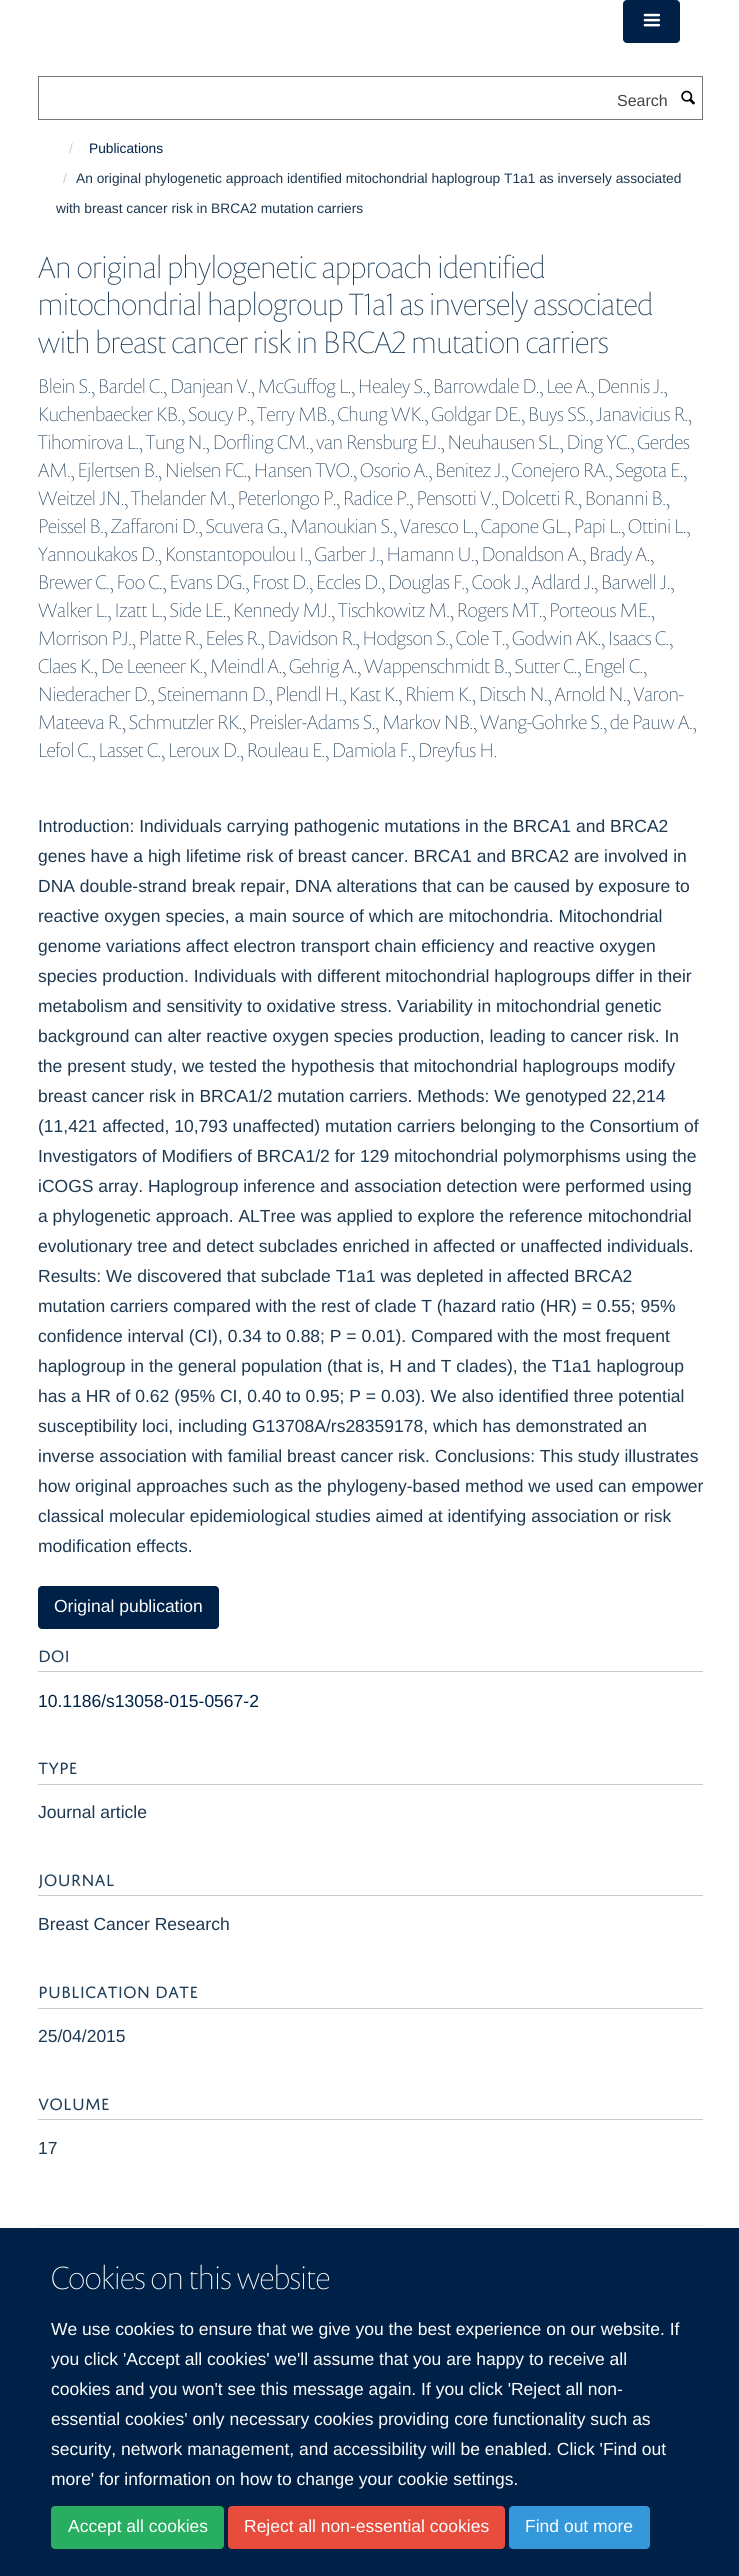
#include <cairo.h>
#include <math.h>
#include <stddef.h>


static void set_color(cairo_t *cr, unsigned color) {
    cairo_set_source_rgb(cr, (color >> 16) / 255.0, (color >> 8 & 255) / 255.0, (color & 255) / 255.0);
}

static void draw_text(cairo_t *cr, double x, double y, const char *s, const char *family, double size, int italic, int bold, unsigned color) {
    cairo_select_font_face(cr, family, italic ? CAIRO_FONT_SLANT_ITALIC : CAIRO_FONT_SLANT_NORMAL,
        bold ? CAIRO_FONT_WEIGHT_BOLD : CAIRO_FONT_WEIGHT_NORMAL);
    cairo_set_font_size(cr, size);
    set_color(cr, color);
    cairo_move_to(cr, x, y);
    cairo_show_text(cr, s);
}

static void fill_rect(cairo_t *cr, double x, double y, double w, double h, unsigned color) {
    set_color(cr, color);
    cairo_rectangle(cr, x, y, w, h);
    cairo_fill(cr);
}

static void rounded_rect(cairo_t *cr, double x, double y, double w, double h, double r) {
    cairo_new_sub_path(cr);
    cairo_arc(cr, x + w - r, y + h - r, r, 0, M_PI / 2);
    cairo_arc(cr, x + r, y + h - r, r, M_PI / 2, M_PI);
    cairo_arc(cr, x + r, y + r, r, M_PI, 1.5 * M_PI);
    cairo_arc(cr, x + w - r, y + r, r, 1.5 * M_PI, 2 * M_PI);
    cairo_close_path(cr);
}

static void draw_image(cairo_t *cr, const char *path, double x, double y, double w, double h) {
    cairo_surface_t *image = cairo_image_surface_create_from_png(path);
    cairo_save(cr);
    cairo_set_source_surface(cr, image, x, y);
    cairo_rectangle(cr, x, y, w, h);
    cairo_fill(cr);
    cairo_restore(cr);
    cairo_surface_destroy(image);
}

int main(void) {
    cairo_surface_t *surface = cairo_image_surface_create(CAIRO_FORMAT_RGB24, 739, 2576);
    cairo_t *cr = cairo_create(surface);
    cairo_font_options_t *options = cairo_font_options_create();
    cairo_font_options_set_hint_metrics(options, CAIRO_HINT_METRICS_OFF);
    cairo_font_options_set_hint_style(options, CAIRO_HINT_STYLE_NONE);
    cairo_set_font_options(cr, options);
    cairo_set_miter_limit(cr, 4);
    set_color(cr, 0xFFFFFF);
    cairo_paint(cr);
    set_color(cr, 0x002147);
    rounded_rect(cr, 623.5, 0.5, 56, 42, 3.5);
    cairo_fill_preserve(cr);
    cairo_set_line_width(cr, 1);
    cairo_stroke(cr);
    draw_image(cr, "assets/img1.png", 643, 13, 18, 14);
    cairo_rectangle(cr, 38.5, 76.5, 664, 43);
    set_color(cr, 0x777777);
    cairo_stroke(cr);
    draw_text(cr, 617, 106, "Search", "Liberation Sans", 16, 0, 0, 0x444444);
    draw_image(cr, "assets/img2.png", 681, 90, 14, 15);
    draw_text(cr, 69, 153, "/", "Liberation Sans", 13.75, 0, 0, 0xCCCCCC);
    draw_text(cr, 89, 153, "Publications", "Liberation Sans", 13.75, 0, 0, 0x002147);
    draw_text(cr, 63, 183, "/", "Liberation Sans", 13.75, 0, 0, 0xCCCCCC);
    draw_text(cr, 76, 183, "An original phylogenetic approach identified mitochondrial haplogroup T1a1 as inversely associated", "Liberation Sans", 13.75, 0, 0, 0x1D3850);
    draw_text(cr, 56, 213, "with breast cancer risk in BRCA2 mutation carriers", "Liberation Sans", 13.75, 0, 0, 0x1D3850);
    draw_text(cr, 38, 278, "An original phylogenetic approach identified", "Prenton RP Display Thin", 31.25, 0, 0, 0x203E58);
    draw_text(cr, 38, 315, "mitochondrial haplogroup T1a1 as inversely associated", "Prenton RP Display Thin", 31.25, 0, 0, 0x203E58);
    draw_text(cr, 38, 353, "with breast cancer risk in BRCA2 mutation carriers", "Prenton RP Display Thin", 31.25, 0, 0, 0x203E58);
    draw_text(cr, 38, 393, "Blein S., Bardel C., Danjean V., McGuffog L., Healey S., Barrowdale D., Lee A., Dennis J.,", "Prenton RP Display Thin", 20, 0, 0, 0x203E58);
    draw_text(cr, 38, 421, "Kuchenbaecker KB., Soucy P., Terry MB., Chung WK., Goldgar DE., Buys SS., Janavicius R.,", "Prenton RP Display Thin", 20, 0, 0, 0x203E58);
    draw_text(cr, 38, 449, "Tihomirova L., Tung N., Dorfling CM., van Rensburg EJ., Neuhausen SL., Ding YC., Gerdes", "Prenton RP Display Thin", 20, 0, 0, 0x203E58);
    draw_text(cr, 38, 477, "AM., Ejlertsen B., Nielsen FC., Hansen TVO., Osorio A., Benitez J., Conejero RA., Segota E.,", "Prenton RP Display Thin", 20, 0, 0, 0x203E58);
    draw_text(cr, 38, 505, "Weitzel JN., Thelander M., Peterlongo P., Radice P., Pensotti V., Dolcetti R., Bonanni B.,", "Prenton RP Display Thin", 20, 0, 0, 0x203E58);
    draw_text(cr, 38, 533, "Peissel B., Zaffaroni D., Scuvera G., Manoukian S., Varesco L., Capone GL., Papi L., Ottini L.,", "Prenton RP Display Thin", 20, 0, 0, 0x203E58);
    draw_text(cr, 38, 561, "Yannoukakos D., Konstantopoulou I., Garber J., Hamann U., Donaldson A., Brady A.,", "Prenton RP Display Thin", 20, 0, 0, 0x203E58);
    draw_text(cr, 38, 589, "Brewer C., Foo C., Evans DG., Frost D., Eccles D., Douglas F., Cook J., Adlard J., Barwell J.,", "Prenton RP Display Thin", 20, 0, 0, 0x203E58);
    draw_text(cr, 38, 617, "Walker L., Izatt L., Side LE., Kennedy MJ., Tischkowitz M., Rogers MT., Porteous ME.,", "Prenton RP Display Thin", 20, 0, 0, 0x203E58);
    draw_text(cr, 38, 645, "Morrison PJ., Platte R., Eeles R., Davidson R., Hodgson S., Cole T., Godwin AK., Isaacs C.,", "Prenton RP Display Thin", 20, 0, 0, 0x203E58);
    draw_text(cr, 38, 673, "Claes K., De Leeneer K., Meindl A., Gehrig A., Wappenschmidt B., Sutter C., Engel C.,", "Prenton RP Display Thin", 20, 0, 0, 0x203E58);
    draw_text(cr, 38, 701, "Niederacher D., Steinemann D., Plendl H., Kast K., Rhiem K., Ditsch N., Arnold N., Varon-", "Prenton RP Display Thin", 20, 0, 0, 0x203E58);
    draw_text(cr, 38, 729, "Mateeva R., Schmutzler RK., Preisler-Adams S., Markov NB., Wang-Gohrke S., de Pauw A.,", "Prenton RP Display Thin", 20, 0, 0, 0x203E58);
    draw_text(cr, 38, 757, "Lefol C., Lasset C., Leroux D., Rouleau E., Damiola F., Dreyfus H.", "Prenton RP Display Thin", 20, 0, 0, 0x203E58);
    draw_text(cr, 38, 832, "Introduction: Individuals carrying pathogenic mutations in the BRCA1 and BRCA2", "Liberation Sans", 17.5, 0, 0, 0x1D3850);
    draw_text(cr, 38, 862, "genes have a high lifetime risk of breast cancer. BRCA1 and BRCA2 are involved in", "Liberation Sans", 17.5, 0, 0, 0x1D3850);
    draw_text(cr, 38, 892, "DNA double-strand break repair, DNA alterations that can be caused by exposure to", "Liberation Sans", 17.5, 0, 0, 0x1D3850);
    draw_text(cr, 38, 922, "reactive oxygen species, a main source of which are mitochondria. Mitochondrial", "Liberation Sans", 17.5, 0, 0, 0x1D3850);
    draw_text(cr, 38, 952, "genome variations affect electron transport chain efficiency and reactive oxygen", "Liberation Sans", 17.5, 0, 0, 0x1D3850);
    draw_text(cr, 38, 982, "species production. Individuals with different mitochondrial haplogroups differ in their", "Liberation Sans", 17.5, 0, 0, 0x1D3850);
    draw_text(cr, 38, 1012, "metabolism and sensitivity to oxidative stress. Variability in mitochondrial genetic", "Liberation Sans", 17.5, 0, 0, 0x1D3850);
    draw_text(cr, 38, 1042, "background can alter reactive oxygen species production, leading to cancer risk. In", "Liberation Sans", 17.5, 0, 0, 0x1D3850);
    draw_text(cr, 38, 1072, "the present study, we tested the hypothesis that mitochondrial haplogroups modify", "Liberation Sans", 17.5, 0, 0, 0x1D3850);
    draw_text(cr, 38, 1102, "breast cancer risk in BRCA1/2 mutation carriers. Methods: We genotyped 22,214", "Liberation Sans", 17.5, 0, 0, 0x1D3850);
    draw_text(cr, 38, 1132, "(11,421 affected, 10,793 unaffected) mutation carriers belonging to the Consortium of", "Liberation Sans", 17.5, 0, 0, 0x1D3850);
    draw_text(cr, 38, 1162, "Investigators of Modifiers of BRCA1/2 for 129 mitochondrial polymorphisms using the", "Liberation Sans", 17.5, 0, 0, 0x1D3850);
    draw_text(cr, 38, 1192, "iCOGS array. Haplogroup inference and association detection were performed using", "Liberation Sans", 17.5, 0, 0, 0x1D3850);
    draw_text(cr, 38, 1222, "a phylogenetic approach. ALTree was applied to explore the reference mitochondrial", "Liberation Sans", 17.5, 0, 0, 0x1D3850);
    draw_text(cr, 38, 1252, "evolutionary tree and detect subclades enriched in affected or unaffected individuals.", "Liberation Sans", 17.5, 0, 0, 0x1D3850);
    draw_text(cr, 38, 1282, "Results: We discovered that subclade T1a1 was depleted in affected BRCA2", "Liberation Sans", 17.5, 0, 0, 0x1D3850);
    draw_text(cr, 38, 1312, "mutation carriers compared with the rest of clade T (hazard ratio (HR) = 0.55; 95%", "Liberation Sans", 17.5, 0, 0, 0x1D3850);
    draw_text(cr, 38, 1342, "confidence interval (CI), 0.34 to 0.88; P = 0.01). Compared with the most frequent", "Liberation Sans", 17.5, 0, 0, 0x1D3850);
    draw_text(cr, 38, 1372, "haplogroup in the general population (that is, H and T clades), the T1a1 haplogroup", "Liberation Sans", 17.5, 0, 0, 0x1D3850);
    draw_text(cr, 38, 1402, "has a HR of 0.62 (95% CI, 0.40 to 0.95; P = 0.03). We also identified three potential", "Liberation Sans", 17.5, 0, 0, 0x1D3850);
    draw_text(cr, 38, 1432, "susceptibility loci, including G13708A/rs28359178, which has demonstrated an", "Liberation Sans", 17.5, 0, 0, 0x1D3850);
    draw_text(cr, 38, 1462, "inverse association with familial breast cancer risk. Conclusions: This study illustrates", "Liberation Sans", 17.5, 0, 0, 0x1D3850);
    draw_text(cr, 38, 1492, "how original approaches such as the phylogeny-based method we used can empower", "Liberation Sans", 17.5, 0, 0, 0x1D3850);
    draw_text(cr, 38, 1522, "classical molecular epidemiological studies aimed at identifying association or risk", "Liberation Sans", 17.5, 0, 0, 0x1D3850);
    draw_text(cr, 38, 1552, "modification effects.", "Liberation Sans", 17.5, 0, 0, 0x1D3850);
    set_color(cr, 0x002147);
    rounded_rect(cr, 38.5, 1586.5, 180, 42, 3.5);
    cairo_fill_preserve(cr);
    cairo_stroke(cr);
    draw_text(cr, 54, 1612, "Original publication", "Liberation Sans", 17.5, 0, 0, 0xFFFFFF);
    fill_rect(cr, 38, 1671, 665, 1, 0xC6CACF);
    draw_text(cr, 38, 1662, "DOI", "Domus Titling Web", 17.5, 0, 0, 0x203E58);
    draw_text(cr, 38, 1707, "10.1186/s13058-015-0567-2", "Liberation Sans", 17.5, 0, 0, 0x002147);
    fill_rect(cr, 38, 1784, 665, 1, 0xC6CACF);
    draw_text(cr, 38, 1774, "TYPE", "Domus Titling Web", 17.5, 0, 0, 0x203E58);
    draw_text(cr, 38, 1818, "Journal article", "Liberation Sans", 17.5, 0, 0, 0x1D3850);
    fill_rect(cr, 38, 1895, 665, 1, 0xC6CACF);
    draw_text(cr, 38, 1886, "JOURNAL", "Domus Titling Web", 17.5, 0, 0, 0x203E58);
    draw_text(cr, 38, 1930, "Breast Cancer Research", "Liberation Sans", 17.5, 0, 0, 0x1D3850);
    fill_rect(cr, 38, 2008, 665, 1, 0xC6CACF);
    draw_text(cr, 38, 1998, "PUBLICATION DATE", "Domus Titling Web", 17.5, 0, 0, 0x203E58);
    draw_text(cr, 38, 2042, "25/04/2015", "Liberation Sans", 17.5, 0, 0, 0x1D3850);
    fill_rect(cr, 38, 2119, 665, 1, 0xC6CACF);
    draw_text(cr, 38, 2110, "VOLUME", "Domus Titling Web", 17.5, 0, 0, 0x203E58);
    draw_text(cr, 38, 2154, "17", "Liberation Sans", 17.5, 0, 0, 0x1D3850);
    fill_rect(cr, 38, 2225, 665, 1, 0xEEEEEE);
    fill_rect(cr, 0, 2228, 739, 348, 0x002147);
    draw_text(cr, 51, 2289, "Cookies on this website", "Prenton RP Display Thin", 32.5, 0, 0, 0xFFFFFF);
    draw_text(cr, 51, 2335, "We use cookies to ensure that we give you the best experience on our website. If", "Liberation Sans", 17.5, 0, 0, 0xFFFFFF);
    draw_text(cr, 51, 2365, "you click 'Accept all cookies' we'll assume that you are happy to receive all", "Liberation Sans", 17.5, 0, 0, 0xFFFFFF);
    draw_text(cr, 51, 2395, "cookies and you won't see this message again. If you click 'Reject all non-", "Liberation Sans", 17.5, 0, 0, 0xFFFFFF);
    draw_text(cr, 51, 2425, "essential cookies' only necessary cookies providing core functionality such as", "Liberation Sans", 17.5, 0, 0, 0xFFFFFF);
    draw_text(cr, 51, 2455, "security, network management, and accessibility will be enabled. Click 'Find out", "Liberation Sans", 17.5, 0, 0, 0xFFFFFF);
    draw_text(cr, 51, 2485, "more' for information on how to change your cookie settings.", "Liberation Sans", 17.5, 0, 0, 0xFFFFFF);
    set_color(cr, 0x27AE60);
    rounded_rect(cr, 51.5, 2506.5, 172, 42, 3.5);
    cairo_fill_preserve(cr);
    cairo_stroke(cr);
    draw_text(cr, 68, 2532, "Accept all cookies", "Liberation Sans", 17.5, 0, 0, 0xFFFFFF);
    set_color(cr, 0xE74C3C);
    rounded_rect(cr, 228.5, 2506.5, 276, 42, 3.5);
    cairo_fill_preserve(cr);
    cairo_stroke(cr);
    draw_text(cr, 244, 2532, "Reject all non-essential cookies", "Liberation Sans", 17.5, 0, 0, 0xFFFFFF);
    set_color(cr, 0x3498DB);
    rounded_rect(cr, 509.5, 2506.5, 140, 42, 3.5);
    cairo_fill_preserve(cr);
    cairo_stroke(cr);
    draw_text(cr, 525, 2532, "Find out more", "Liberation Sans", 17.5, 0, 0, 0xFFFFFF);
    cairo_surface_write_to_png(surface, "output.png");
    cairo_font_options_destroy(options);
    cairo_destroy(cr);
    cairo_surface_destroy(surface);
    return 0;
}
